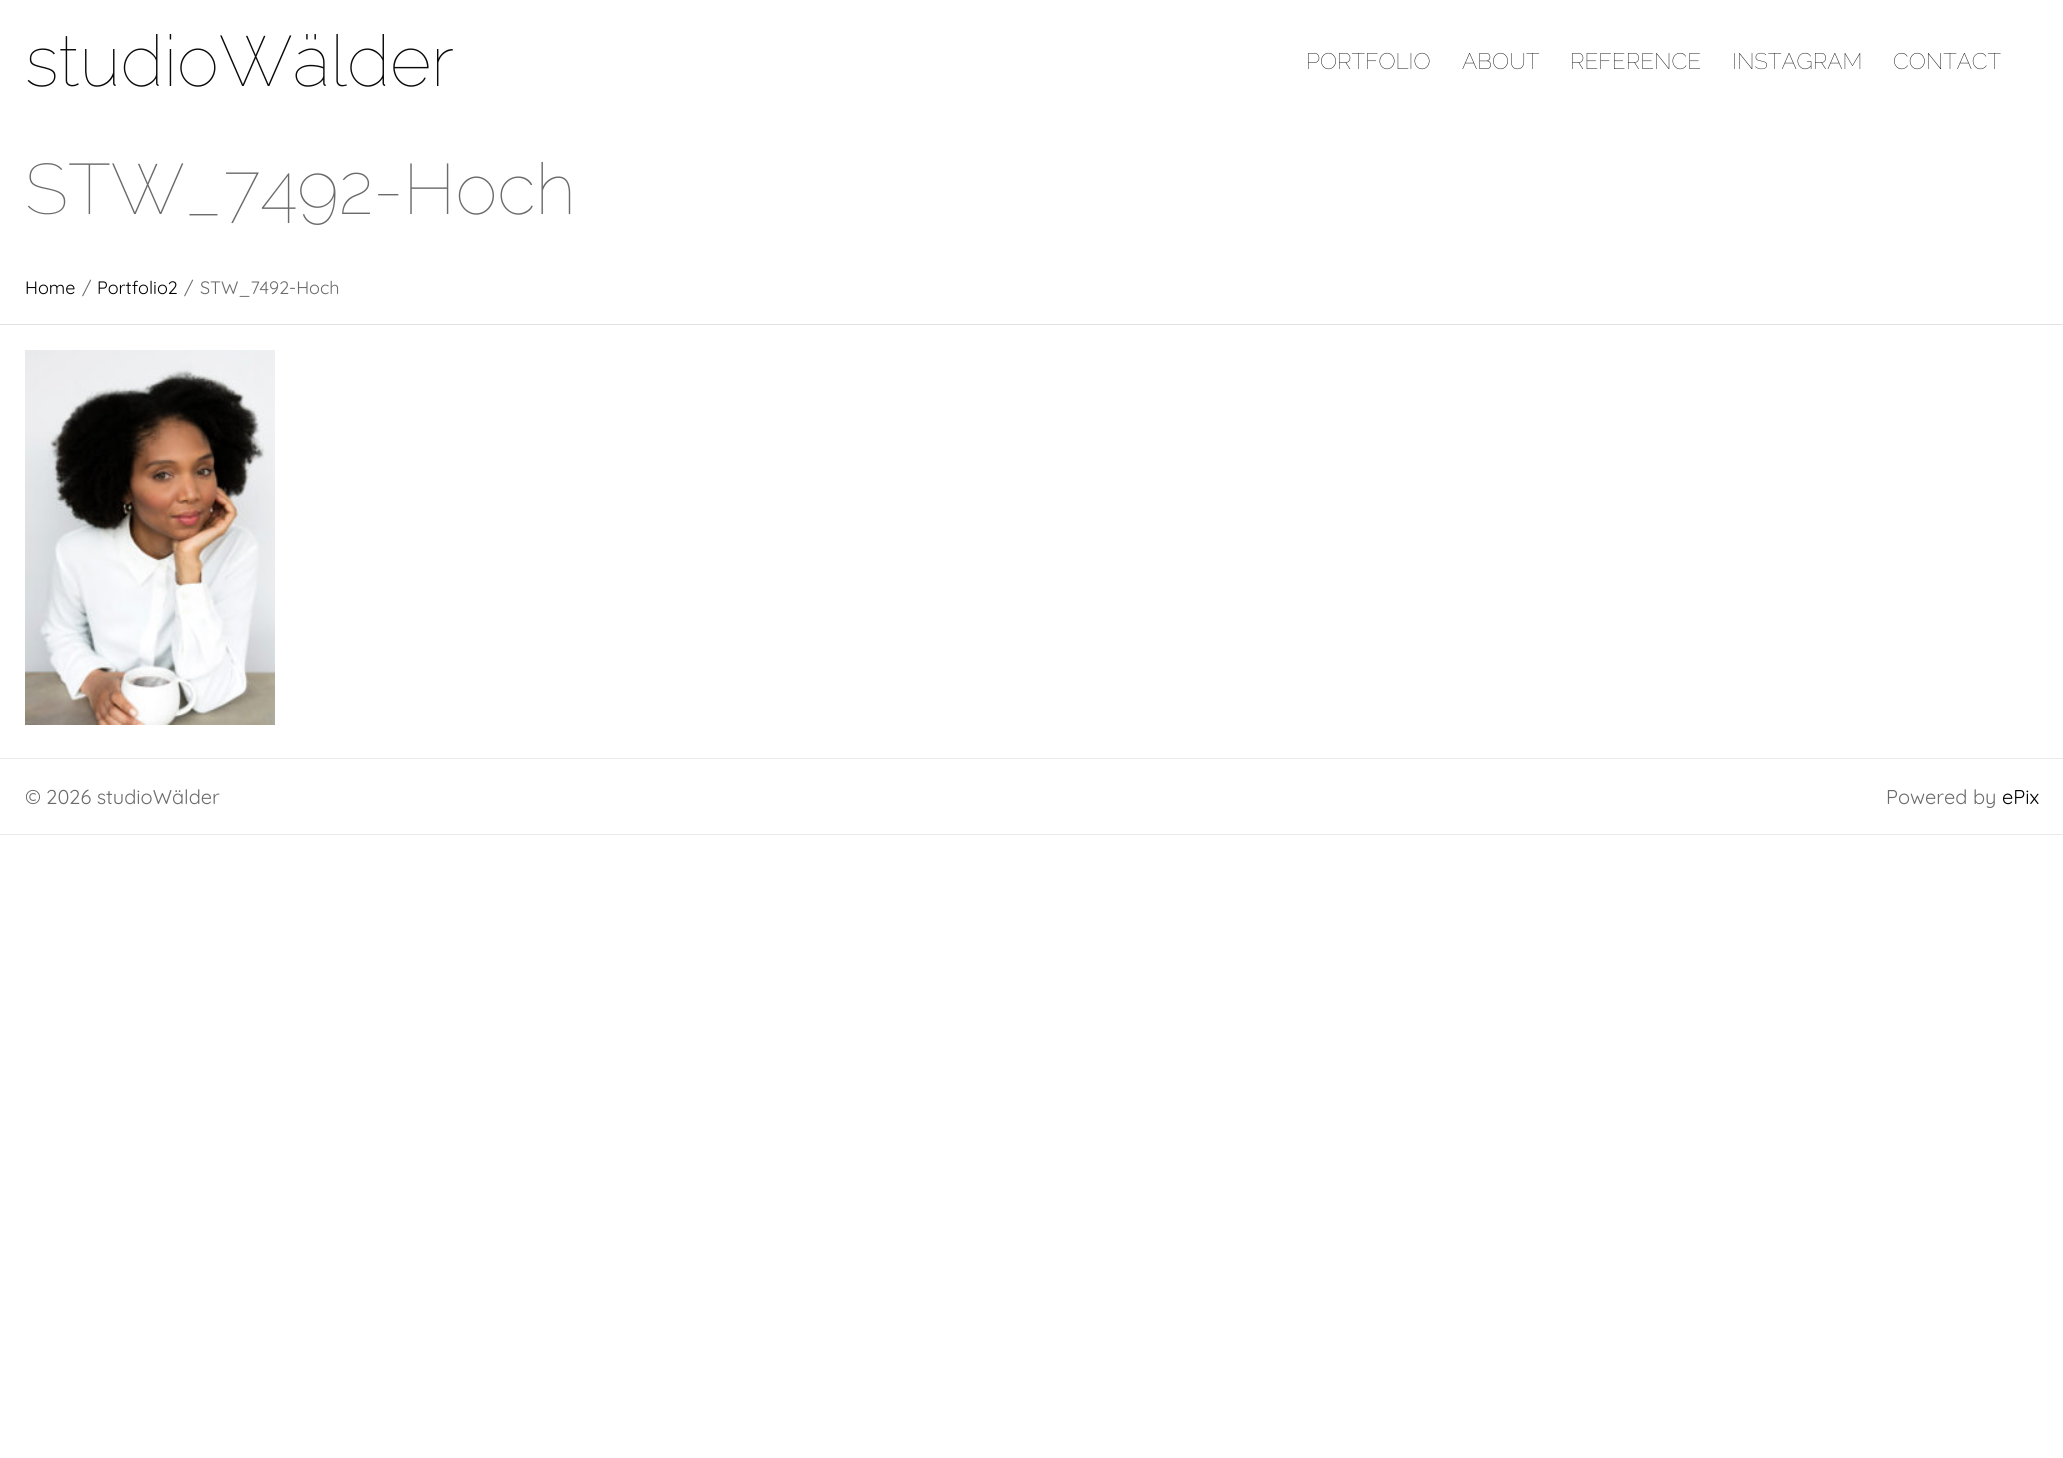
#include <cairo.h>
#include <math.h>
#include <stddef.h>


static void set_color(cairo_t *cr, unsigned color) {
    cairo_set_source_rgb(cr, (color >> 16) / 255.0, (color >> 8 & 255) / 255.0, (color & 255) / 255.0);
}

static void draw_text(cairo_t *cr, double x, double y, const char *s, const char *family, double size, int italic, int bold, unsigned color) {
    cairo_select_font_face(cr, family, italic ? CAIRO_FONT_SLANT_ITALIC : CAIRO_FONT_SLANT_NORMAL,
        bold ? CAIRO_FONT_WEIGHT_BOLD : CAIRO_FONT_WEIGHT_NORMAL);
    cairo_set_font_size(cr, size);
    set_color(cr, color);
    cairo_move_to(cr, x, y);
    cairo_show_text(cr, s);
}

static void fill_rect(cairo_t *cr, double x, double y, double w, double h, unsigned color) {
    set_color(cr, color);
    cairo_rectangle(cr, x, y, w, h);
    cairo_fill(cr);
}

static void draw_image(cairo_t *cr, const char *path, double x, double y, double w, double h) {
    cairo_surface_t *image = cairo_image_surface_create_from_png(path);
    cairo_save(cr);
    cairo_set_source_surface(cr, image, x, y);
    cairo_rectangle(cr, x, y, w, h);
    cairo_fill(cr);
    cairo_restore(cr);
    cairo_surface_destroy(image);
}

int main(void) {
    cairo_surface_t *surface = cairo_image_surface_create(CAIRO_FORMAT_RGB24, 2063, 1458);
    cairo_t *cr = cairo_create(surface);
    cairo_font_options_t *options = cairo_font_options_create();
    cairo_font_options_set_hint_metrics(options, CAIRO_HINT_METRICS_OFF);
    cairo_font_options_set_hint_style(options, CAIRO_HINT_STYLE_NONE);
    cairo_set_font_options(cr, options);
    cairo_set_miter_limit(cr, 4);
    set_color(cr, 0xFFFFFF);
    cairo_paint(cr);
    draw_text(cr, 25, 86, "studioWälder", "Raleway Thin", 71.25, 0, 0, 0x0A0A0A);
    draw_text(cr, 1306, 69, "PORTFOLIO", "Raleway Thin", 22.5, 0, 0, 0x000000);
    draw_text(cr, 1462, 69, "ABOUT", "Raleway Thin", 22.5, 0, 0, 0x000000);
    draw_text(cr, 1570, 69, "REFERENCE", "Raleway Thin", 22.5, 0, 0, 0x000000);
    draw_text(cr, 1732, 69, "INSTAGRAM", "Raleway Thin", 22.5, 0, 0, 0x000000);
    draw_text(cr, 1893, 69, "CONTACT", "Raleway Thin", 22.5, 0, 0, 0x000000);
    draw_text(cr, 25, 214, "STW_7492-Hoch", "Raleway Thin", 71.25, 0, 0, 0x6B6B6B);
    fill_rect(cr, 0, 324, 2063, 1, 0xE2E2E2);
    draw_text(cr, 25, 294, "Home", "Quicksand", 18, 0, 0, 0x000000);
    draw_text(cr, 82, 294, "/", "Quicksand", 18, 0, 0, 0x6B6B6B);
    draw_text(cr, 97, 294, "Portfolio2", "Quicksand", 18, 0, 0, 0x000000);
    draw_text(cr, 184, 294, "/", "Quicksand", 18, 0, 0, 0x6B6B6B);
    draw_text(cr, 200, 294, "STW_7492-Hoch", "Quicksand", 18, 0, 0, 0x6B6B6B);
    draw_image(cr, "assets/img1.png", 25, 350, 250, 375);
    fill_rect(cr, 0, 758, 2063, 1, 0xEAEAEA);
    fill_rect(cr, 0, 834, 2063, 1, 0xEAEAEA);
    draw_text(cr, 25, 804, "© 2026 studioWälder", "Quicksand", 20, 0, 0, 0x6B6B6B);
    draw_text(cr, 1886, 804, "Powered by", "Quicksand", 20, 0, 0, 0x6B6B6B);
    draw_text(cr, 2002, 804, "ePix", "Quicksand", 20, 0, 0, 0x000000);
    cairo_surface_write_to_png(surface, "output.png");
    cairo_font_options_destroy(options);
    cairo_destroy(cr);
    cairo_surface_destroy(surface);
    return 0;
}
